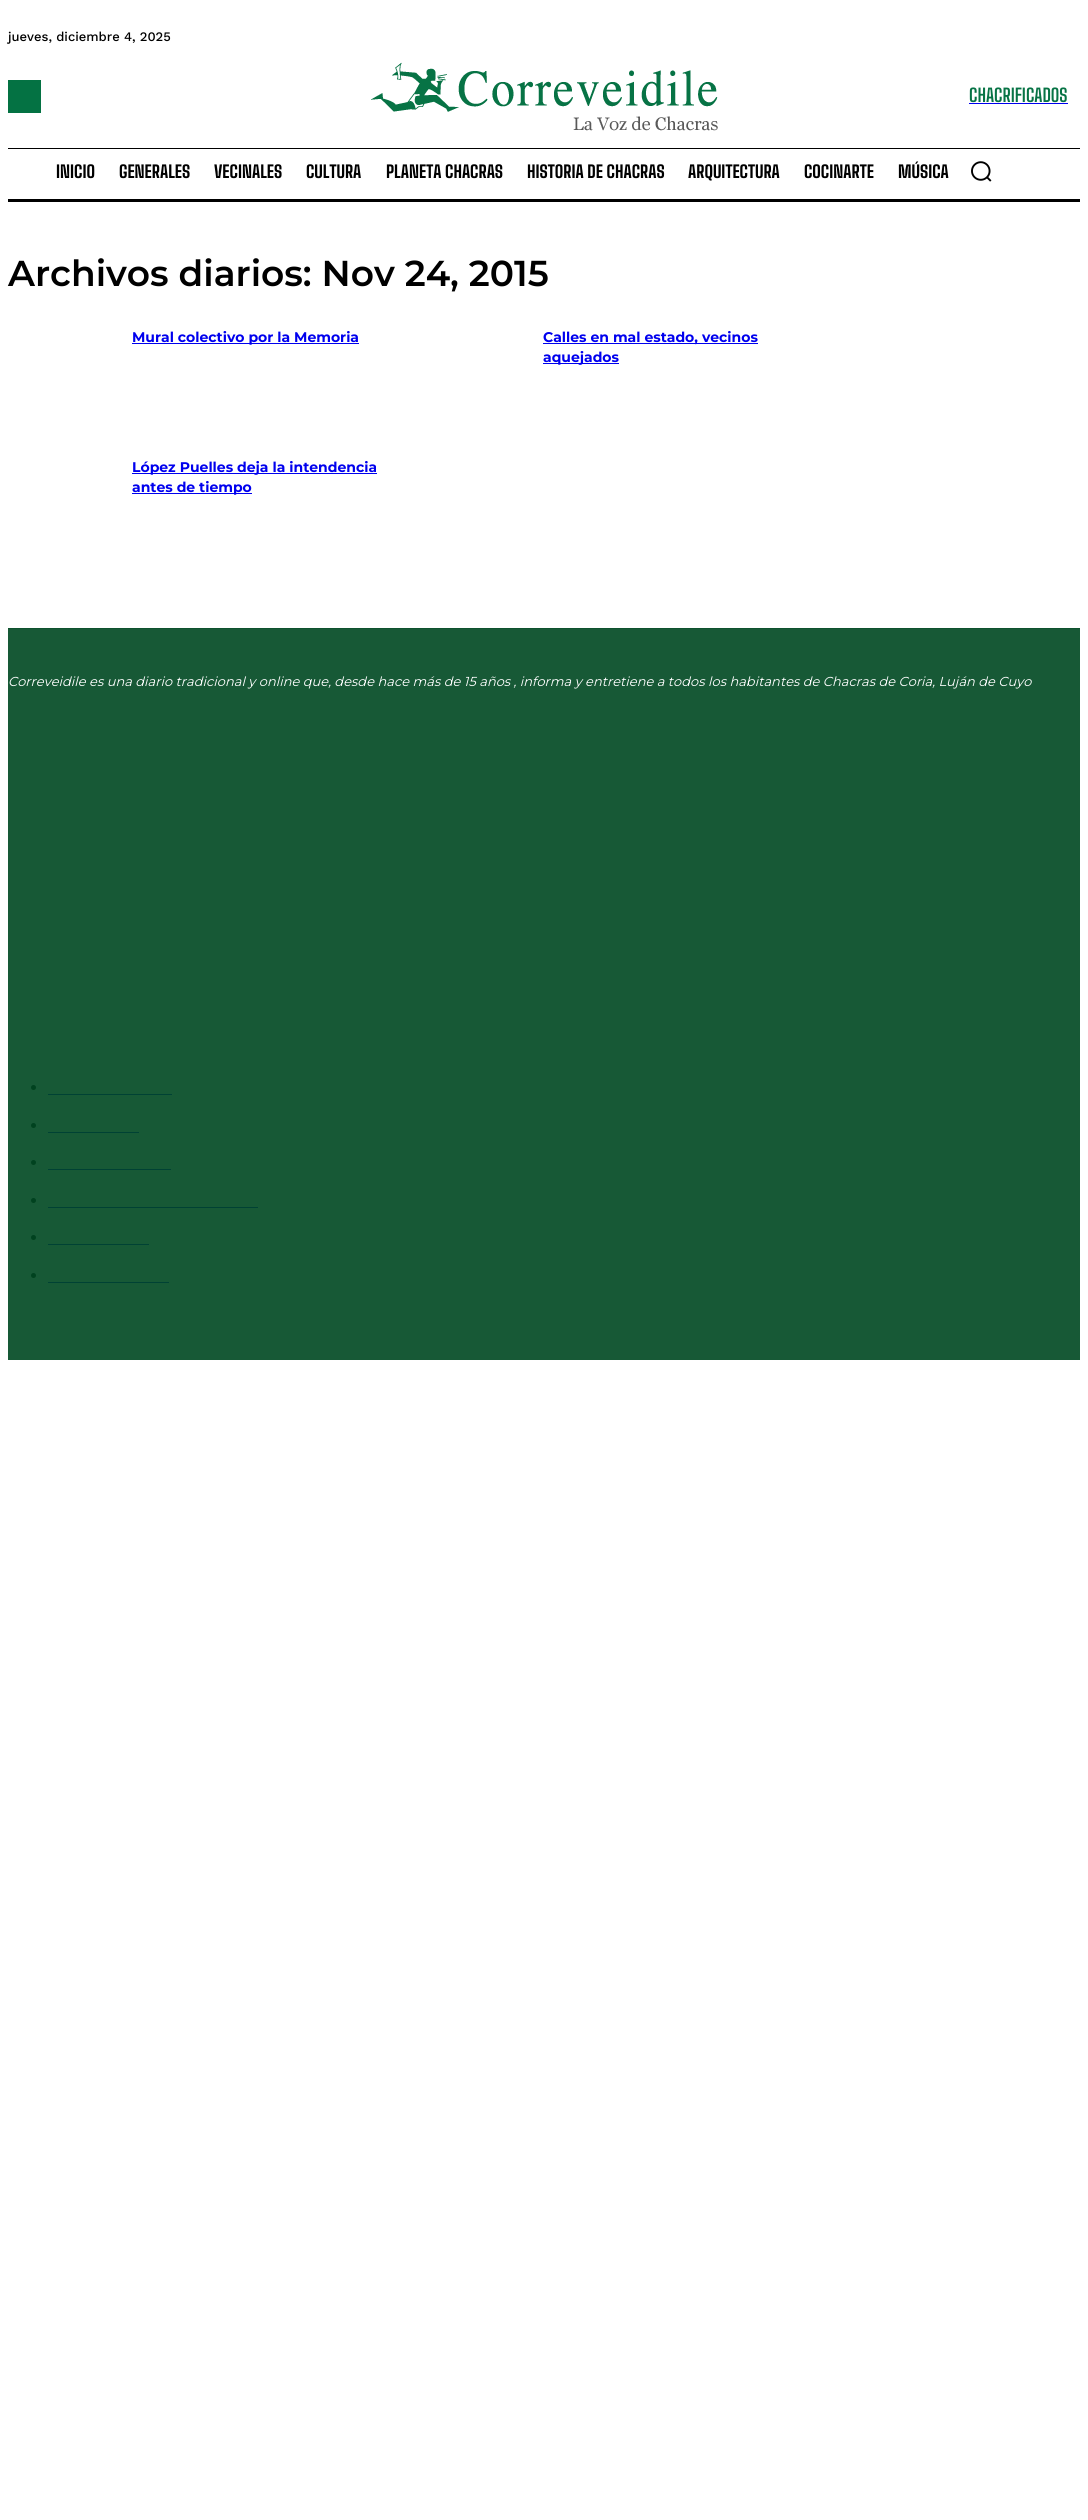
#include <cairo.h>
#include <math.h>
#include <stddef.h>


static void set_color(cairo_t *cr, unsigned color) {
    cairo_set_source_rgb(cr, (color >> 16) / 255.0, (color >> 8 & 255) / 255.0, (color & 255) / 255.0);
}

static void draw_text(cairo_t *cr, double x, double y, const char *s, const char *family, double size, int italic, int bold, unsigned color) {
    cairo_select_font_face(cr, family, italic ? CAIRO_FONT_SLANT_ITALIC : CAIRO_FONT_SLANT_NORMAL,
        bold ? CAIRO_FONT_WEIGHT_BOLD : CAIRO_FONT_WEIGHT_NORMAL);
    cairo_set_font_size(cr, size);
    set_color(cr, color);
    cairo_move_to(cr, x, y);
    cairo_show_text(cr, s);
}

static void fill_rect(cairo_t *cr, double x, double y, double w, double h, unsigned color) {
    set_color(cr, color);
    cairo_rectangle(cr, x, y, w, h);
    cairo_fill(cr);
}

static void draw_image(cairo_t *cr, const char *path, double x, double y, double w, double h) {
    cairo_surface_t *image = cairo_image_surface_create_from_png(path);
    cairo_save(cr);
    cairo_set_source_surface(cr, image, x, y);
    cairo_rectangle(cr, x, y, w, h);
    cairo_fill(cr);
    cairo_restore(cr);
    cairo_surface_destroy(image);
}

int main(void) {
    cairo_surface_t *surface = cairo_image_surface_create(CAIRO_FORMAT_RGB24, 1088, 2520);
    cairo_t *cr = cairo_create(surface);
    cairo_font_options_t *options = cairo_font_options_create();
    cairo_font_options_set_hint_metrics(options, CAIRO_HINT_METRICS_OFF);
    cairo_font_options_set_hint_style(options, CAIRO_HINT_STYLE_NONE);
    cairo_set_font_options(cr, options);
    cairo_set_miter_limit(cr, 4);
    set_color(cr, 0xFFFFFF);
    cairo_paint(cr);
    fill_rect(cr, 8, 629, 1072, 731, 0x175936);
    draw_text(cr, 8, 41, "jueves, diciembre 4, 2025", "Work Sans Medium", 13, 0, 0, 0x000000);
    fill_rect(cr, 8, 80, 33, 33, 0x047243);
    draw_image(cr, "assets/img1.png", 371, 62, 347, 69);
    draw_text(cr, 969, 102, "CHACRIFICADOS", "Big Shoulders Text", 18, 0, 1, 0x077345);
    fill_rect(cr, 969, 103, 99, 1, 0x0000EE);
    fill_rect(cr, 8, 148, 1072, 1, 0x000000);
    fill_rect(cr, 8, 199, 1072, 3, 0x000000);
    draw_text(cr, 56, 178, "INICIO", "Big Shoulders Text ExtraBold", 17, 0, 0, 0x000000);
    draw_text(cr, 119, 178, "GENERALES", "Big Shoulders Text ExtraBold", 17, 0, 0, 0x000000);
    draw_text(cr, 214, 178, "VECINALES", "Big Shoulders Text ExtraBold", 17, 0, 0, 0x000000);
    draw_text(cr, 306, 178, "CULTURA", "Big Shoulders Text ExtraBold", 17, 0, 0, 0x000000);
    draw_text(cr, 386, 178, "PLANETA CHACRAS", "Big Shoulders Text ExtraBold", 17, 0, 0, 0x000000);
    draw_text(cr, 527, 178, "HISTORIA DE CHACRAS", "Big Shoulders Text ExtraBold", 17, 0, 0, 0x000000);
    draw_text(cr, 688, 178, "ARQUITECTURA", "Big Shoulders Text ExtraBold", 17, 0, 0, 0x000000);
    draw_text(cr, 804, 178, "COCINARTE", "Big Shoulders Text ExtraBold", 17, 0, 0, 0x000000);
    draw_text(cr, 898, 178, "MÚSICA", "Big Shoulders Text ExtraBold", 17, 0, 0, 0x000000);
    draw_image(cr, "assets/img2.png", 971, 161, 21, 21);
    draw_text(cr, 8, 286, "Archivos diarios: Nov 24, 2015", "Montserrat SemiBold", 36, 0, 0, 0x000000);
    fill_rect(cr, 132, 343, 227, 1, 0x0000EE);
    draw_text(cr, 132, 342, "Mural colectivo por la Memoria", "Montserrat", 14, 0, 1, 0x0000EE);
    fill_rect(cr, 543, 343, 215, 1, 0x0000EE);
    draw_text(cr, 543, 342, "Calles en mal estado, vecinos", "Montserrat", 14, 0, 1, 0x0000EE);
    fill_rect(cr, 543, 363, 76, 1, 0x0000EE);
    draw_text(cr, 543, 362, "aquejados", "Montserrat", 14, 0, 1, 0x0000EE);
    fill_rect(cr, 132, 473, 245, 1, 0x0000EE);
    draw_text(cr, 132, 472, "López Puelles deja la intendencia", "Montserrat", 14, 0, 1, 0x0000EE);
    fill_rect(cr, 132, 493, 120, 1, 0x0000EE);
    draw_text(cr, 132, 492, "antes de tiempo", "Montserrat", 14, 0, 1, 0x0000EE);
    fill_rect(cr, 8, 628, 1072, 1, 0x0F522E);
    draw_text(cr, 8, 686, "Correveidile es una diario tradicional y online que, desde hace más de 15 años , informa y entretiene a todos los habitantes de Chacras de Coria, Luján de Cuyo", "Montserrat", 13, 1, 0, 0xFFFFFF);
    set_color(cr, 0x00421F);
    cairo_new_path(cr);
    cairo_arc(cr, 33.5, 1087.5, 2.5, 0, 2 * M_PI);
    cairo_fill(cr);
    fill_rect(cr, 48, 1094, 124, 1, 0x004234);
    set_color(cr, 0x00421F);
    cairo_arc(cr, 33.5, 1125.5, 2.5, 0, 2 * M_PI);
    cairo_fill(cr);
    fill_rect(cr, 48, 1132, 91, 1, 0x004234);
    set_color(cr, 0x00421F);
    cairo_arc(cr, 33.5, 1162.5, 2.5, 0, 2 * M_PI);
    cairo_fill(cr);
    fill_rect(cr, 48, 1169, 123, 1, 0x004234);
    set_color(cr, 0x00421F);
    cairo_arc(cr, 33.5, 1200.5, 2.5, 0, 2 * M_PI);
    cairo_fill(cr);
    fill_rect(cr, 48, 1207, 210, 1, 0x004234);
    set_color(cr, 0x00421F);
    cairo_arc(cr, 33.5, 1237.5, 2.5, 0, 2 * M_PI);
    cairo_fill(cr);
    fill_rect(cr, 48, 1244, 101, 1, 0x004234);
    set_color(cr, 0x00421F);
    cairo_arc(cr, 33.5, 1275.5, 2.5, 0, 2 * M_PI);
    cairo_fill(cr);
    fill_rect(cr, 48, 1282, 121, 1, 0x004234);
    cairo_surface_write_to_png(surface, "output.png");
    cairo_font_options_destroy(options);
    cairo_destroy(cr);
    cairo_surface_destroy(surface);
    return 0;
}
